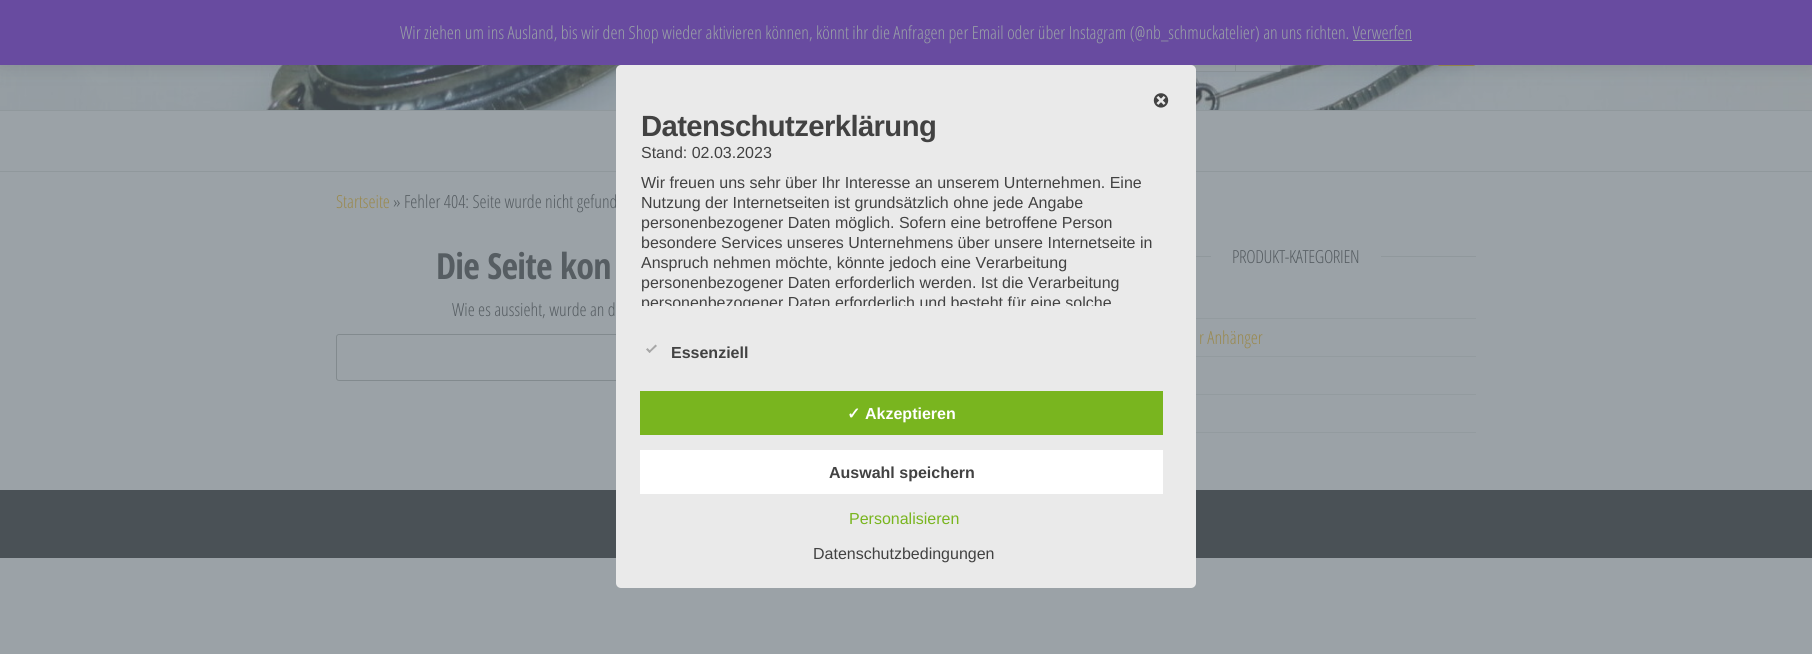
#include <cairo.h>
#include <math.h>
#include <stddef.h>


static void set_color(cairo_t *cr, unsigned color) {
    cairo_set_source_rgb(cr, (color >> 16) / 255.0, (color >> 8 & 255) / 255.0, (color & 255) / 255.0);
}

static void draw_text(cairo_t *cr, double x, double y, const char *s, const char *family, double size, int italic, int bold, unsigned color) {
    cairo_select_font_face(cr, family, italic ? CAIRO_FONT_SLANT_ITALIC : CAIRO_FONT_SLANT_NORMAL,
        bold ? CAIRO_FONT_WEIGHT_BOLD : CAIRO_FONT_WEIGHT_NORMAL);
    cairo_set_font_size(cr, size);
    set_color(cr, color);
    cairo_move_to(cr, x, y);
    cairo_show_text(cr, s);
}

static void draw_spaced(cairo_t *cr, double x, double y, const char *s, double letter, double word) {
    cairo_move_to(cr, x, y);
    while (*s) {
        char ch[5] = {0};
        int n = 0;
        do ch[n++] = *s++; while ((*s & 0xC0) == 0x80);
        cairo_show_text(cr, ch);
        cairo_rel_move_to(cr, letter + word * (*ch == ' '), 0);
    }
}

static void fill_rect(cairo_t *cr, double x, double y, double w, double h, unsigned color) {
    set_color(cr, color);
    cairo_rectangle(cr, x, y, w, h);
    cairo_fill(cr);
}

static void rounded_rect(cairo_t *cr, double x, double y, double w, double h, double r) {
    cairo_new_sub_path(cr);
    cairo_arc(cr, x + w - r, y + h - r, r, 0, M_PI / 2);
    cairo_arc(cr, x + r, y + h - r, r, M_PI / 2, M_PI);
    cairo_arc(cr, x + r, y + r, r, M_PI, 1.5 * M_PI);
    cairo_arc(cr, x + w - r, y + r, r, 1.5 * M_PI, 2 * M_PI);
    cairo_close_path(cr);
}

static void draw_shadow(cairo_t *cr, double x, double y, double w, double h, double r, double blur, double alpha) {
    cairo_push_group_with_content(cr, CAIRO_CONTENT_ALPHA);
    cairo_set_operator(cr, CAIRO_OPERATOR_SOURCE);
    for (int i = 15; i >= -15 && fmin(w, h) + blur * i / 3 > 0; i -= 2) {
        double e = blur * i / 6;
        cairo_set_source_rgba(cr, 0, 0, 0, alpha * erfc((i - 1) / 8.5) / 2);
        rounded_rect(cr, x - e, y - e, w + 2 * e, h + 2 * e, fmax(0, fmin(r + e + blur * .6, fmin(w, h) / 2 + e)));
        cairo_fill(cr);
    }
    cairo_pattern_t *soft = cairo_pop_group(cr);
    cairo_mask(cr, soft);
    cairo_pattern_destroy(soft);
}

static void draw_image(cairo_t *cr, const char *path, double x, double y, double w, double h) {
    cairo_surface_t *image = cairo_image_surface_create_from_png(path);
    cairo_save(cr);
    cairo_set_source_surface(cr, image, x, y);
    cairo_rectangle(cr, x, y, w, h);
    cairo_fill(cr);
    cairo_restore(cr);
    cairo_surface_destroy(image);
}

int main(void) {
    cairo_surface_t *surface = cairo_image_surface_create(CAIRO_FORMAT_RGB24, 1812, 654);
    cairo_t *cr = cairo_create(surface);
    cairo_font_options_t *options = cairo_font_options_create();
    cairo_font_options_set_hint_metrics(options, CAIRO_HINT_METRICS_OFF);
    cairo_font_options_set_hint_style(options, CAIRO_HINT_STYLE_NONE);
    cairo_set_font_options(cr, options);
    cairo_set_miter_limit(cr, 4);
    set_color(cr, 0x9BA2A7);
    cairo_paint(cr);
    draw_image(cr, "assets/img2.png", 0, 65, 1812, 45);
    rounded_rect(cr, 726.5, 30.5, 554, 41, 2.5);
    set_color(cr, 0x8D9599);
    cairo_set_line_width(cr, 1);
    cairo_stroke(cr);
    fill_rect(cr, 1191, 65, 89, 6, 0x9BA2A7);
    fill_rect(cr, 1235, 65, 1, 6, 0x8D9599);
    draw_image(cr, "assets/img3.png", 1375, 65, 2, 1);
    draw_image(cr, "assets/img4.png", 1402, 65, 22, 1);
    set_color(cr, 0x9A894D);
    rounded_rect(cr, 1437, 44, 39, 22, 3);
    cairo_fill(cr);
    set_color(cr, 0x3F464B);
    draw_shadow(cr, 0, 1, 1812, 65, 0, 9, 0.2);
    fill_rect(cr, 0, 0, 1812, 65, 0x684BA0);
    draw_text(cr, 400, 39, "Wir ziehen um ins Ausland, bis wir den Shop wieder aktivieren können, könnt ihr die Anfragen per Email oder über Instagram (@nb_schmuckatelier) an uns richten. Verwerfen", "Open Sans Condensed Light", 18, 0, 0, 0x99A1A6);
    fill_rect(cr, 1353, 40, 59, 1, 0x99A1A6);
    fill_rect(cr, 0, 110, 1812, 1, 0x90989C);
    fill_rect(cr, 0, 171, 1812, 1, 0x90989C);
    draw_text(cr, 393, 208, "» Fehler 404: Seite wurde nicht gefund", "Open Sans Condensed Light", 18, 0, 0, 0x565D62);
    rounded_rect(cr, 336.5, 334.5, 749, 46, 2.5);
    set_color(cr, 0x828A8E);
    cairo_stroke(cr);
    fill_rect(cr, 0, 490, 1812, 68, 0x4A5156);
    set_color(cr, 0xEAEAEA);
    rounded_rect(cr, 616, 65, 580, 523, 5);
    cairo_fill(cr);
    draw_image(cr, "assets/img1.png", 1153, 93, 16, 15);
    cairo_select_font_face(cr, "Liberation Sans", CAIRO_FONT_SLANT_NORMAL, CAIRO_FONT_WEIGHT_BOLD);
    cairo_set_font_size(cr, 29.25);
    set_color(cr, 0x424242);
    draw_spaced(cr, 641, 136, "Datenschutzerklärung", -0.6, 0);
    draw_text(cr, 641, 158, "Stand: 02.03.2023", "Liberation Sans", 16, 0, 0, 0x424242);
    draw_text(cr, 641, 188, "Wir freuen uns sehr über Ihr Interesse an unserem Unternehmen. Eine", "Liberation Sans", 16, 0, 0, 0x424242);
    draw_text(cr, 641, 208, "Nutzung der Internetseiten ist grundsätzlich ohne jede Angabe", "Liberation Sans", 16, 0, 0, 0x424242);
    draw_text(cr, 641, 228, "personenbezogener Daten möglich. Sofern eine betroffene Person", "Liberation Sans", 16, 0, 0, 0x424242);
    draw_text(cr, 641, 248, "besondere Services unseres Unternehmens über unsere Internetseite in", "Liberation Sans", 16, 0, 0, 0x424242);
    draw_text(cr, 641, 268, "Anspruch nehmen möchte, könnte jedoch eine Verarbeitung", "Liberation Sans", 16, 0, 0, 0x424242);
    draw_text(cr, 641, 288, "personenbezogener Daten erforderlich werden. Ist die Verarbeitung", "Liberation Sans", 16, 0, 0, 0x424242);
    cairo_save(cr);
    cairo_rectangle(cr, 641, 110, 540, 196);
    cairo_clip(cr);
    draw_text(cr, 641, 308, "personenbezogener Daten erforderlich und besteht für eine solche", "Liberation Sans", 16, 0, 0, 0x424242);
    cairo_restore(cr);
    set_color(cr, 0xA7A7A7);
    cairo_new_path(cr);
    cairo_move_to(cr, 655.5, 344.5);
    cairo_line_to(cr, 657, 346);
    cairo_line_to(cr, 649.5, 353);
    cairo_line_to(cr, 648.5, 351.5);
    cairo_close_path(cr);
    cairo_fill(cr);
    cairo_new_path(cr);
    cairo_move_to(cr, 647.5, 348);
    cairo_line_to(cr, 651, 351.5);
    cairo_line_to(cr, 649.5, 353);
    cairo_line_to(cr, 646, 349.5);
    cairo_close_path(cr);
    cairo_fill(cr);
    draw_text(cr, 671, 358, "Essenziell", "Liberation Sans", 16, 0, 1, 0x424242);
    fill_rect(cr, 640, 391, 523, 44, 0x79B51F);
    draw_text(cr, 847, 419, "✓", "DejaVu Sans", 16, 0, 1, 0xFFFFFF);
    draw_text(cr, 865, 419, "Akzeptieren", "Liberation Sans", 16, 0, 1, 0xFFFFFF);
    fill_rect(cr, 640, 450, 523, 44, 0xFFFFFF);
    draw_text(cr, 829, 478, "Auswahl speichern", "Liberation Sans", 16, 0, 1, 0x424242);
    draw_text(cr, 849, 524, "Personalisieren", "Liberation Sans", 16, 0, 0, 0x79B51F);
    draw_text(cr, 813, 559, "Datenschutzbedingungen", "Liberation Sans", 16, 0, 0, 0x424242);
    draw_text(cr, 336, 208, "Startseite", "Open Sans Condensed Light", 18, 0, 0, 0x9A894D);
    cairo_select_font_face(cr, "Open Sans Condensed", CAIRO_FONT_SLANT_NORMAL, CAIRO_FONT_WEIGHT_BOLD);
    cairo_set_font_size(cr, 36);
    set_color(cr, 0x565D62);
    draw_spaced(cr, 436, 279, "Die Seite kon", -0.75, 0);
    draw_text(cr, 452, 316, "Wie es aussieht, wurde an d", "Open Sans Condensed Light", 18, 0, 0, 0x565D62);
    fill_rect(cr, 1196, 256, 280, 1, 0x90989C);
    fill_rect(cr, 1211, 256, 170, 1, 0x9BA2A7);
    set_color(cr, 0x565D62);
    draw_spaced(cr, 1232, 263, "PRODUKT-KATEGORIEN", -0.4, 0);
    fill_rect(cr, 1196, 318, 280, 1, 0x939B9F);
    fill_rect(cr, 1196, 356, 280, 1, 0x939B9F);
    draw_text(cr, 1199, 344, "r Anhänger", "Open Sans Condensed Light", 18, 0, 0, 0x9A894D);
    fill_rect(cr, 1196, 394, 280, 1, 0x939B9F);
    fill_rect(cr, 1196, 432, 280, 1, 0x939B9F);
    cairo_surface_write_to_png(surface, "output.png");
    cairo_font_options_destroy(options);
    cairo_destroy(cr);
    cairo_surface_destroy(surface);
    return 0;
}
